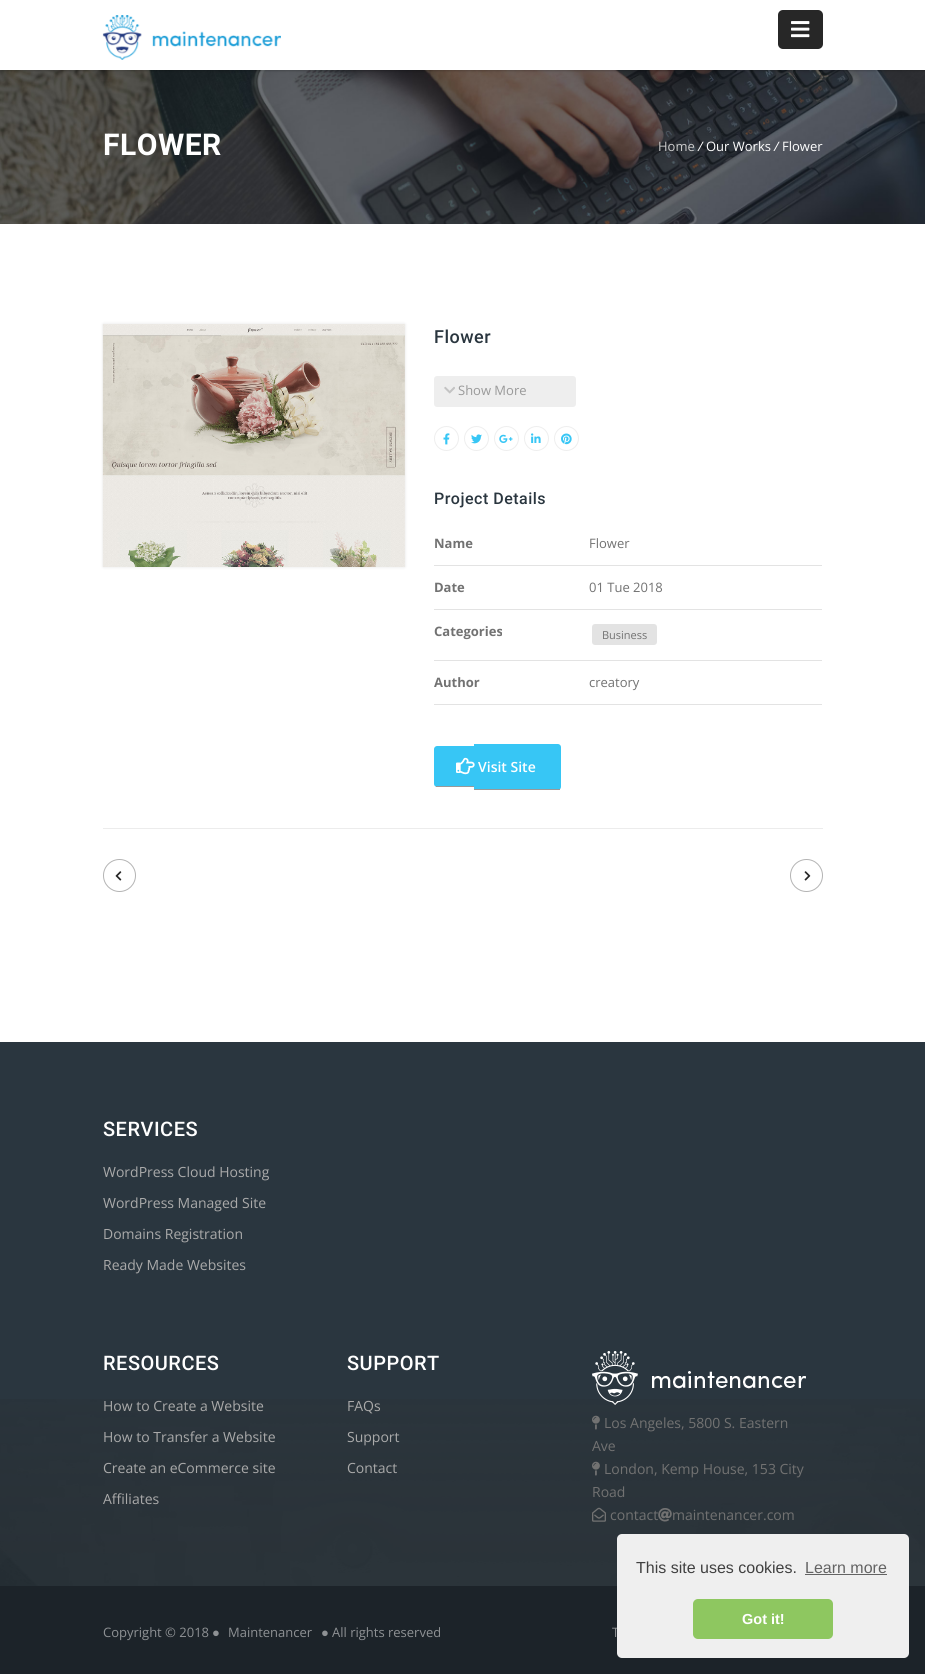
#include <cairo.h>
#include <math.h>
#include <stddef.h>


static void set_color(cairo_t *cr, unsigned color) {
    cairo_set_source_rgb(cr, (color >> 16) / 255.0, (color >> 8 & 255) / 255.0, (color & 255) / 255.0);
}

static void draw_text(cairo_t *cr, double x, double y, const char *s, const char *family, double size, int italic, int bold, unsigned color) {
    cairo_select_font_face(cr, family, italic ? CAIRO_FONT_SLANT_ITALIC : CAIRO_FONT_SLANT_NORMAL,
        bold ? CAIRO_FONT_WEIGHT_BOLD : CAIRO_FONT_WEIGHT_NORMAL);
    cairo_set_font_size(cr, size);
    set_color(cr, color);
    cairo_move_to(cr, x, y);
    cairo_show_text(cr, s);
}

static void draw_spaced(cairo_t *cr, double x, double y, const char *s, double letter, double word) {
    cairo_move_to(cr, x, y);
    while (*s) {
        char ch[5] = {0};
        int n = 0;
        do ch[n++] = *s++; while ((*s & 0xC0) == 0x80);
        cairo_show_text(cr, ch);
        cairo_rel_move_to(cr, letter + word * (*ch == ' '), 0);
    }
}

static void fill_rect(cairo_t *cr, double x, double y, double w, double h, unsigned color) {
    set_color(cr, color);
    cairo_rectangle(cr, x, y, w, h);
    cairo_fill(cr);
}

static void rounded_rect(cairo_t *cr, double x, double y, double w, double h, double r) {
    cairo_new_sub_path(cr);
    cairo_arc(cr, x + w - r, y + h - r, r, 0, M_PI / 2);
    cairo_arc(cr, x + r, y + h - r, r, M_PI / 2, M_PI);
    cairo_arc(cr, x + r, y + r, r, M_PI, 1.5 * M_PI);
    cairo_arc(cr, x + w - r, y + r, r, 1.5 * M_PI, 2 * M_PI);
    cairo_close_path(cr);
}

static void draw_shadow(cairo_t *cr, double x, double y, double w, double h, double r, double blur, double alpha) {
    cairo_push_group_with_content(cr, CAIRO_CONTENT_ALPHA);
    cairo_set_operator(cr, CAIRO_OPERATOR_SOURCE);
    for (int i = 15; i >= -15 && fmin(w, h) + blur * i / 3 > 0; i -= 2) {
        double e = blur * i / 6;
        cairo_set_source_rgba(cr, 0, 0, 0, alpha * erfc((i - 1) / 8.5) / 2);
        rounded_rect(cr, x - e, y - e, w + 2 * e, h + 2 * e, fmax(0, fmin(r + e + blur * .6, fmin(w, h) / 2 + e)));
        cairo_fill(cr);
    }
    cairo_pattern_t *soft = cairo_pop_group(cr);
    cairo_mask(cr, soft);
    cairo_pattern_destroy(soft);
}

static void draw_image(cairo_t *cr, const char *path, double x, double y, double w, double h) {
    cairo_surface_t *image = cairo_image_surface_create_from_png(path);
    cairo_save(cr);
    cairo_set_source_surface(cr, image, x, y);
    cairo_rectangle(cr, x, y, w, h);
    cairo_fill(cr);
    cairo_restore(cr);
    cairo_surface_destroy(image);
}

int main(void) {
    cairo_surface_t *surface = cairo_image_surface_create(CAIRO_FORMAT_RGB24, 925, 1674);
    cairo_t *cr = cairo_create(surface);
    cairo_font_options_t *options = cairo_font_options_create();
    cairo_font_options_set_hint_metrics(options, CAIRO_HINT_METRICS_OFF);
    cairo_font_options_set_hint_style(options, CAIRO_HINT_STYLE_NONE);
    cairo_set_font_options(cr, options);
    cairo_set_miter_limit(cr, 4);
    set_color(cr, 0xFFFFFF);
    cairo_paint(cr);
    draw_image(cr, "assets/img3.png", 0, 70, 925, 154);
    set_color(cr, 0x000000);
    draw_shadow(cr, 0, 1, 925, 70, 0, 1, 0.2);
    fill_rect(cr, 0, 0, 925, 70, 0xFFFFFF);
    draw_image(cr, "assets/img1.png", 102, 15, 179, 45);
    set_color(cr, 0x272727);
    rounded_rect(cr, 778, 10, 45, 39, 5);
    cairo_fill(cr);
    draw_image(cr, "assets/img2.png", 791, 21, 19, 17);
    cairo_select_font_face(cr, "Roboto", CAIRO_FONT_SLANT_NORMAL, CAIRO_FONT_WEIGHT_BOLD);
    cairo_set_font_size(cr, 30);
    set_color(cr, 0xFFFFFF);
    draw_spaced(cr, 103, 155, "FLOWER", 0.5, 0);
    draw_text(cr, 658, 151, "Home", "Open Sans", 13, 0, 0, 0xCCCCCC);
    draw_text(cr, 698, 151, "/", "Open Sans", 13, 1, 0, 0xFFFFFF);
    draw_text(cr, 706, 151, "Our Works", "Open Sans", 13, 0, 0, 0xFFFFFF);
    draw_text(cr, 774, 151, "/", "Open Sans", 13, 1, 0, 0xFFFFFF);
    draw_text(cr, 782, 151, "Flower", "Open Sans", 13, 0, 0, 0xFFFFFF);
    set_color(cr, 0x000000);
    draw_shadow(cr, 103, 324, 302, 243, 0, 1.5, 0.1);
    draw_image(cr, "assets/img4.png", 102, 324, 303, 243);
    cairo_select_font_face(cr, "Roboto Medium", CAIRO_FONT_SLANT_NORMAL, CAIRO_FONT_WEIGHT_NORMAL);
    cairo_set_font_size(cr, 18);
    set_color(cr, 0x2A363F);
    draw_spaced(cr, 434, 343, "Flower", 0.5, 0);
    set_color(cr, 0xEEEEEE);
    rounded_rect(cr, 434, 376, 142, 31, 3);
    cairo_fill(cr);
    draw_image(cr, "assets/img5.png", 444, 386, 11, 8);
    draw_text(cr, 458, 395, "Show More", "Open Sans", 13, 0, 0, 0x999999);
    cairo_new_path(cr);
    cairo_arc(cr, 446.5, 438.5, 12, 0, 2 * M_PI);
    set_color(cr, 0xEEEEEE);
    cairo_set_line_width(cr, 1);
    cairo_stroke(cr);
    draw_image(cr, "assets/img6.png", 443, 433, 7, 12);
    cairo_arc(cr, 476.5, 438.5, 12, 0, 2 * M_PI);
    cairo_stroke(cr);
    draw_image(cr, "assets/img7.png", 471, 434, 11, 10);
    cairo_arc(cr, 506.5, 438.5, 12, 0, 2 * M_PI);
    cairo_stroke(cr);
    draw_image(cr, "assets/img8.png", 499, 434, 14, 9);
    cairo_arc(cr, 536.5, 438.5, 12, 0, 2 * M_PI);
    cairo_stroke(cr);
    draw_image(cr, "assets/img9.png", 531, 433, 10, 10);
    cairo_arc(cr, 566.5, 438.5, 12, 0, 2 * M_PI);
    cairo_stroke(cr);
    draw_image(cr, "assets/img10.png", 561, 433, 11, 12);
    cairo_select_font_face(cr, "Roboto Medium", CAIRO_FONT_SLANT_NORMAL, CAIRO_FONT_WEIGHT_NORMAL);
    cairo_set_font_size(cr, 16);
    set_color(cr, 0x2A363F);
    draw_spaced(cr, 434, 504, "Project Details", 0.5, 0);
    fill_rect(cr, 434, 565, 388, 1, 0xE3E3E3);
    draw_text(cr, 434, 548, "Name", "Open Sans", 13, 0, 1, 0x727272);
    draw_text(cr, 589, 548, "Flower", "Open Sans", 13, 0, 0, 0x727272);
    fill_rect(cr, 434, 609, 388, 1, 0xE3E3E3);
    draw_text(cr, 434, 592, "Date", "Open Sans", 13, 0, 1, 0x727272);
    draw_text(cr, 589, 592, "01 Tue 2018", "Open Sans", 13, 0, 0, 0x727272);
    fill_rect(cr, 434, 660, 388, 1, 0xE3E3E3);
    draw_text(cr, 434, 636, "Categories", "Open Sans", 13, 0, 1, 0x727272);
    set_color(cr, 0xE3E3E3);
    rounded_rect(cr, 592, 624, 65, 21, 3);
    cairo_fill(cr);
    draw_text(cr, 602, 639, "Business", "Open Sans", 11, 0, 0, 0x727272);
    fill_rect(cr, 434, 704, 388, 1, 0xE3E3E3);
    draw_text(cr, 434, 687, "Author", "Open Sans", 13, 0, 1, 0x727272);
    draw_text(cr, 589, 687, "creatory", "Open Sans", 13, 0, 0, 0x727272);
    set_color(cr, 0x37C6F5);
    cairo_new_path(cr);
    cairo_move_to(cr, 437, 746);
    cairo_line_to(cr, 474, 746);
    cairo_line_to(cr, 474, 787);
    cairo_line_to(cr, 437, 787);
    cairo_curve_to(cr, 435.5, 787, 434, 785.5, 434, 784);
    cairo_line_to(cr, 434, 749);
    cairo_curve_to(cr, 434, 747.5, 435.5, 746, 437, 746);
    cairo_close_path(cr);
    cairo_fill(cr);
    fill_rect(cr, 436, 786, 38, 1, 0x999999);
    set_color(cr, 0x37C6F5);
    cairo_new_path(cr);
    cairo_move_to(cr, 474, 744);
    cairo_line_to(cr, 558, 744);
    cairo_curve_to(cr, 559.5, 744, 561, 745.5, 561, 747);
    cairo_line_to(cr, 561, 787);
    cairo_curve_to(cr, 561, 788.5, 559.5, 790, 558, 790);
    cairo_line_to(cr, 474, 790);
    cairo_close_path(cr);
    cairo_fill(cr);
    fill_rect(cr, 474, 789, 86, 1, 0x999999);
    draw_image(cr, "assets/img11.png", 456, 757, 19, 18);
    draw_text(cr, 478, 772, "Visit Site", "Open Sans SemiBold", 14, 0, 0, 0xFFFFFF);
    fill_rect(cr, 103, 828, 720, 1, 0xECECEC);
    cairo_new_path(cr);
    cairo_arc(cr, 119.5, 875.5, 16, 0, 2 * M_PI);
    set_color(cr, 0xB4B4B4);
    cairo_stroke(cr);
    draw_image(cr, "assets/img12.png", 115, 871, 7, 10);
    cairo_arc(cr, 806.5, 875.5, 16, 0, 2 * M_PI);
    cairo_stroke(cr);
    draw_image(cr, "assets/img13.png", 804, 871, 7, 10);
    fill_rect(cr, 0, 1042, 925, 544, 0x2A363F);
    draw_image(cr, "assets/img14.png", 0, 1399, 925, 187);
    cairo_select_font_face(cr, "Roboto Medium", CAIRO_FONT_SLANT_NORMAL, CAIRO_FONT_WEIGHT_NORMAL);
    cairo_set_font_size(cr, 20);
    set_color(cr, 0xFFFFFF);
    draw_spaced(cr, 103, 1136, "SERVICES", 0.5, 0);
    draw_text(cr, 103, 1177, "WordPress Cloud Hosting", "Open Sans", 14, 0, 0, 0xAAAAAA);
    draw_text(cr, 103, 1208, "WordPress Managed Site", "Open Sans", 14, 0, 0, 0xAAAAAA);
    draw_text(cr, 103, 1239, "Domains Registration", "Open Sans", 14, 0, 0, 0xAAAAAA);
    draw_text(cr, 103, 1270, "Ready Made Websites", "Open Sans", 14, 0, 0, 0xAAAAAA);
    cairo_select_font_face(cr, "Roboto Medium", CAIRO_FONT_SLANT_NORMAL, CAIRO_FONT_WEIGHT_NORMAL);
    cairo_set_font_size(cr, 20);
    set_color(cr, 0xFFFFFF);
    draw_spaced(cr, 103, 1370, "RESOURCES", 0.5, 0);
    draw_text(cr, 103, 1411, "How to Create a Website", "Open Sans", 14, 0, 0, 0xAAAAAA);
    draw_text(cr, 103, 1442, "How to Transfer a Website", "Open Sans", 14, 0, 0, 0xAAAAAA);
    draw_text(cr, 103, 1473, "Create an eCommerce site", "Open Sans", 14, 0, 0, 0xAAAAAA);
    draw_text(cr, 103, 1504, "Affiliates", "Open Sans", 14, 0, 0, 0xAAAAAA);
    cairo_select_font_face(cr, "Roboto Medium", CAIRO_FONT_SLANT_NORMAL, CAIRO_FONT_WEIGHT_NORMAL);
    cairo_set_font_size(cr, 20);
    set_color(cr, 0xFFFFFF);
    draw_spaced(cr, 347, 1370, "SUPPORT", 0.5, 0);
    draw_text(cr, 347, 1411, "FAQs", "Open Sans", 14, 0, 0, 0xAAAAAA);
    draw_text(cr, 347, 1442, "Support", "Open Sans", 14, 0, 0, 0xAAAAAA);
    draw_text(cr, 347, 1473, "Contact", "Open Sans", 14, 0, 0, 0xAAAAAA);
    draw_image(cr, "assets/img15.png", 592, 1351, 214, 54);
    draw_image(cr, "assets/img16.png", 592, 1415, 8, 15);
    draw_text(cr, 604, 1428, "Los Angeles, 5800 S. Eastern", "Open Sans", 14, 0, 0, 0x727272);
    draw_text(cr, 592, 1451, "Ave", "Open Sans", 14, 0, 0, 0x727272);
    draw_image(cr, "assets/img17.png", 592, 1461, 8, 15);
    draw_text(cr, 604, 1474, "London, Kemp House, 153 City", "Open Sans", 14, 0, 0, 0x727272);
    draw_text(cr, 592, 1497, "Road", "Open Sans", 14, 0, 0, 0x727272);
    draw_image(cr, "assets/img18.png", 592, 1507, 14, 15);
    draw_text(cr, 610, 1520, "contact", "Open Sans", 14, 0, 0, 0x727272);
    draw_image(cr, "assets/img19.png", 658, 1508, 14, 14);
    draw_text(cr, 672, 1520, "maintenancer.com", "Open Sans", 14, 0, 0, 0x727272);
    fill_rect(cr, 0, 1586, 925, 88, 0x1C2329);
    draw_text(cr, 103, 1637, "Copyright © 2018", "Open Sans", 13, 0, 0, 0x8E9194);
    draw_text(cr, 212, 1637, "●", "Liberation Sans", 13, 0, 0, 0x8E9194);
    draw_text(cr, 228, 1637, "Maintenancer", "Open Sans", 13, 0, 0, 0x8E9194);
    draw_text(cr, 321, 1637, "●", "Liberation Sans", 13, 0, 0, 0x8E9194);
    draw_text(cr, 332, 1637, "All rights reserved", "Open Sans", 13, 0, 0, 0x8E9194);
    draw_text(cr, 612, 1637, "T", "Open Sans", 13, 0, 0, 0x8E9194);
    set_color(cr, 0xEFEFEF);
    rounded_rect(cr, 617, 1534, 292, 124, 5);
    cairo_fill(cr);
    draw_text(cr, 636, 1573, "This site uses cookies.", "Liberation Sans", 16, 0, 0, 0x404040);
    draw_text(cr, 805, 1573, "Learn more", "Liberation Sans", 16, 0, 0, 0x636363);
    fill_rect(cr, 805, 1574, 82, 1, 0x636363);
    set_color(cr, 0x8EC760);
    rounded_rect(cr, 693, 1599, 140, 40, 5);
    cairo_fill(cr);
    draw_text(cr, 742, 1624, "Got it!", "Liberation Sans", 14.5, 0, 1, 0xFFFFFF);
    cairo_surface_write_to_png(surface, "output.png");
    cairo_font_options_destroy(options);
    cairo_destroy(cr);
    cairo_surface_destroy(surface);
    return 0;
}
